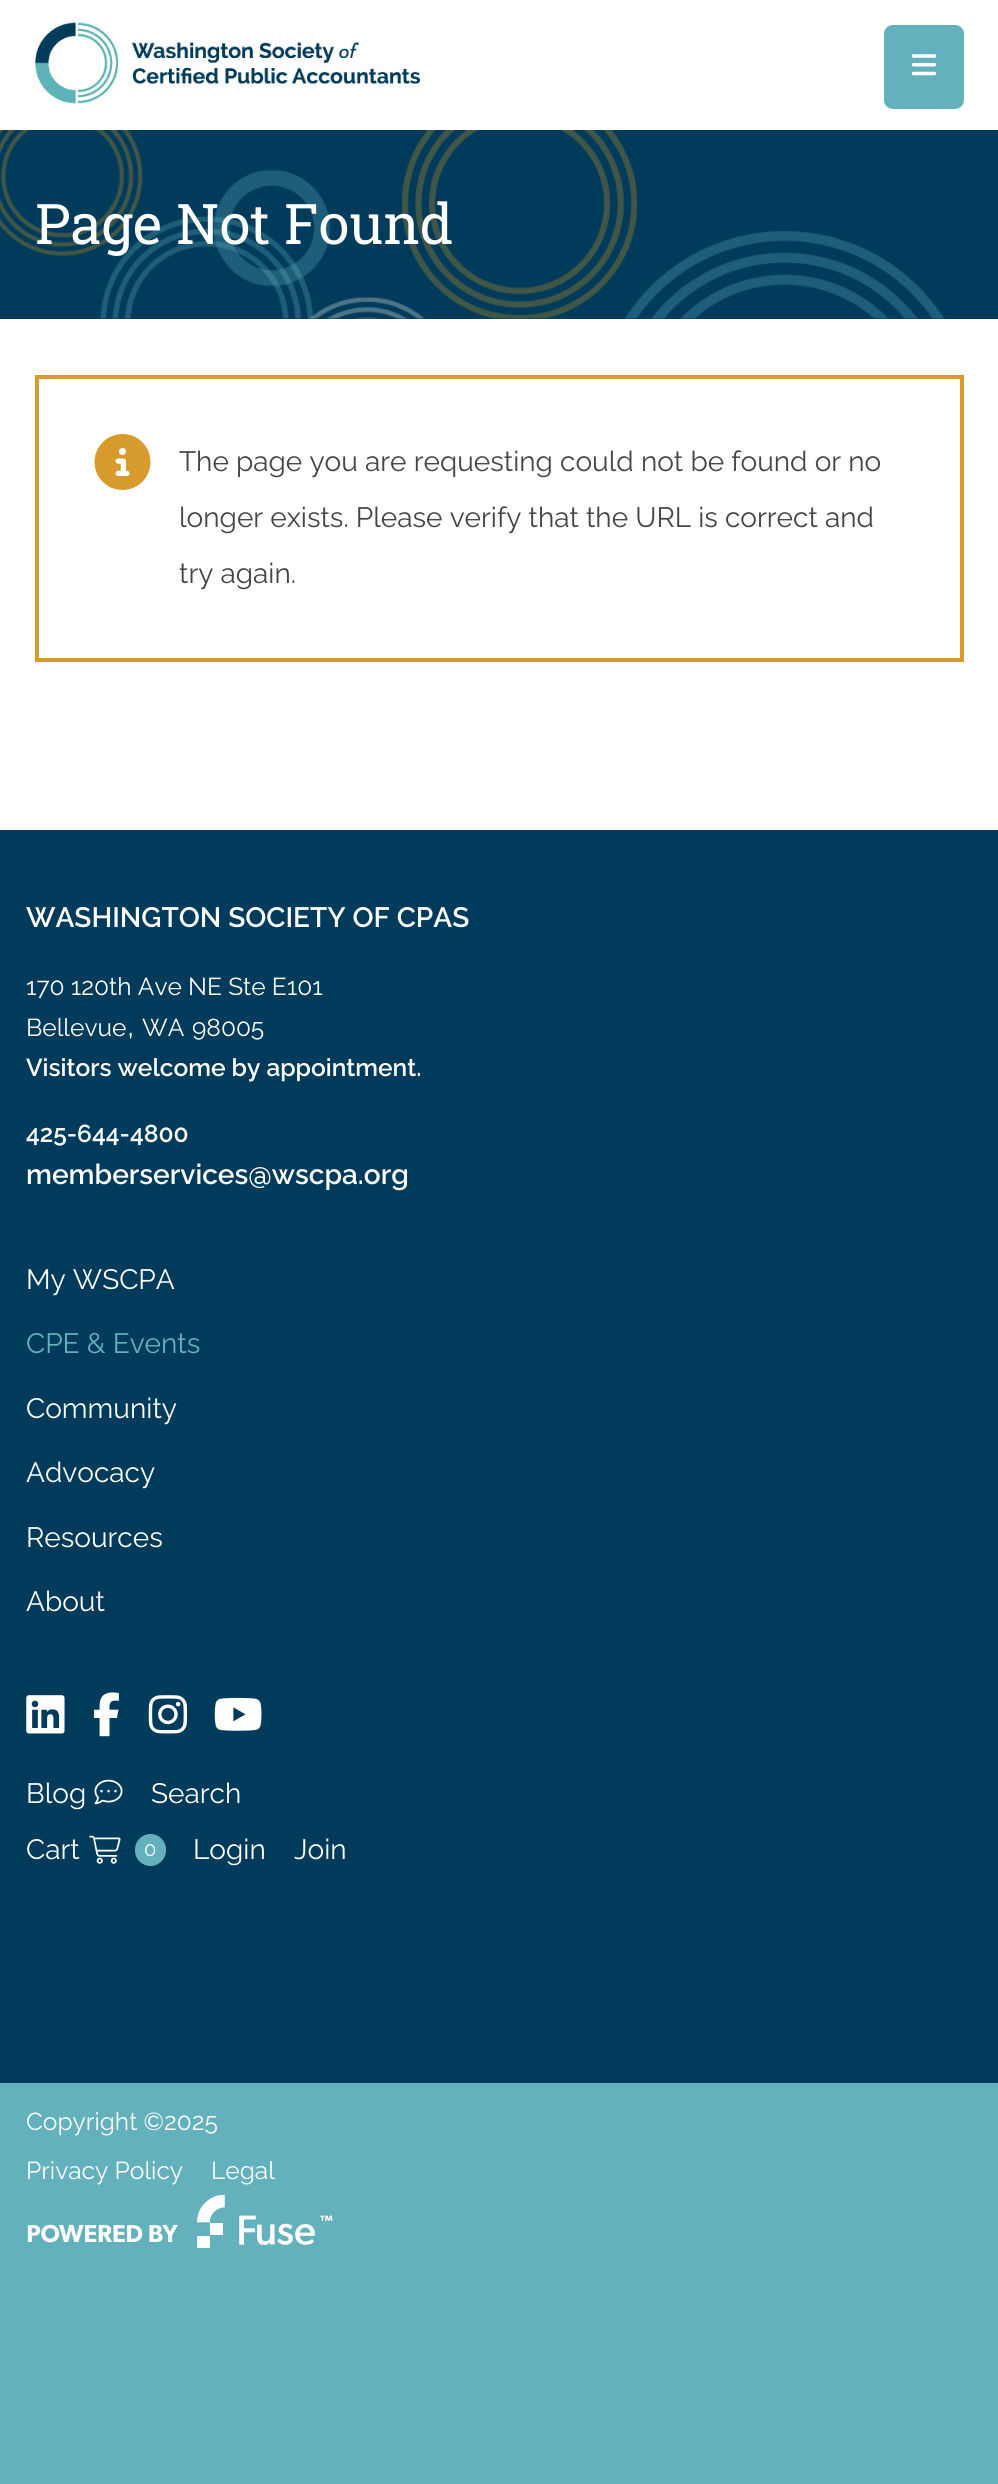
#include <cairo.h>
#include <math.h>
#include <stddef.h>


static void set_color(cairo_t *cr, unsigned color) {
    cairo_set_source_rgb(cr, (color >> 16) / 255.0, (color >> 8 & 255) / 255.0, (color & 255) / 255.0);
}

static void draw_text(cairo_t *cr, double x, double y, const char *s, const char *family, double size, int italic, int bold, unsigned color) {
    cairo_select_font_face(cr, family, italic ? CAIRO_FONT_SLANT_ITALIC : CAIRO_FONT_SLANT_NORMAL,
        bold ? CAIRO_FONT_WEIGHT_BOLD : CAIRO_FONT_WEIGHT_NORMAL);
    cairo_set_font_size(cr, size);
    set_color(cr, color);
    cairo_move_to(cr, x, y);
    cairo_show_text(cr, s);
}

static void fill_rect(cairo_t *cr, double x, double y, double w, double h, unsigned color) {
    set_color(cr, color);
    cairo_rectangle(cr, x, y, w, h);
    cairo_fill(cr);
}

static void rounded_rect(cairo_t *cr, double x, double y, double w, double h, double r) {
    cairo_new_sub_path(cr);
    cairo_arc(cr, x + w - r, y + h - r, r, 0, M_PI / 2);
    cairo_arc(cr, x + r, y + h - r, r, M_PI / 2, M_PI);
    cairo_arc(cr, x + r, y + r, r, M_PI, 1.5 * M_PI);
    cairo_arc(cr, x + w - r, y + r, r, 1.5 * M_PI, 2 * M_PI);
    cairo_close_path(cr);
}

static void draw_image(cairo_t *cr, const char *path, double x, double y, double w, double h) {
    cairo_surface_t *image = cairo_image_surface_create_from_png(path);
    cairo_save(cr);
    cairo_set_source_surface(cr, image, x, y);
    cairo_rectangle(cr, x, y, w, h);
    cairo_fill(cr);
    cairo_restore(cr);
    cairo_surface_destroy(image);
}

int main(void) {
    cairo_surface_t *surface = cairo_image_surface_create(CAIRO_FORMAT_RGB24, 998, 2484);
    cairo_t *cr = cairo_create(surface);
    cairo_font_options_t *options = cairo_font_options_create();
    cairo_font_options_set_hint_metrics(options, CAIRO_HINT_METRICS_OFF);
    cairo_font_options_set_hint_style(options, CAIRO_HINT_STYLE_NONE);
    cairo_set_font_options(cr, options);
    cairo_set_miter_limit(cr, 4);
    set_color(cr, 0x63B1BC);
    cairo_paint(cr);
    fill_rect(cr, 0, 0, 998, 830, 0xFFFFFF);
    fill_rect(cr, 0, 130, 998, 189, 0x003B5C);
    draw_image(cr, "assets/img3.png", 0, 129, 314, 190);
    fill_rect(cr, 94, 129, 34, 1, 0xFFFFFF);
    draw_image(cr, "assets/img1.png", 35, 22, 385, 82);
    set_color(cr, 0x63B1BC);
    rounded_rect(cr, 884, 25, 80, 84, 9);
    cairo_fill(cr);
    draw_image(cr, "assets/img2.png", 911, 54, 26, 22);
    draw_image(cr, "assets/img4.png", 213, 130, 732, 189);
    draw_text(cr, 35, 244, "Page Not Found", "Roboto Slab", 56, 0, 0, 0xFFFFFF);
    cairo_rectangle(cr, 37, 377, 925, 283);
    set_color(cr, 0xD69A2D);
    cairo_set_line_width(cr, 4);
    cairo_stroke(cr);
    draw_image(cr, "assets/img5.png", 94, 434, 57, 56);
    draw_text(cr, 179, 471, "The page you are requesting could not be found or no", "Raleway", 28, 0, 0, 0x454545);
    draw_text(cr, 179, 527, "longer exists. Please verify that the URL is correct and", "Raleway", 28, 0, 0, 0x454545);
    draw_text(cr, 179, 583, "try again.", "Raleway", 28, 0, 0, 0x454545);
    fill_rect(cr, 0, 830, 998, 1253, 0x003B5C);
    draw_text(cr, 26, 927, "WASHINGTON SOCIETY OF CPAS", "Raleway SemiBold", 28, 0, 0, 0xFFFFFF);
    draw_text(cr, 26, 995, "170 120th Ave NE Ste E101", "Raleway", 24.5, 0, 0, 0xFFFFFF);
    draw_text(cr, 26, 1036, "Bellevue", "Raleway", 24.5, 0, 0, 0xFFFFFF);
    draw_text(cr, 127, 1036, ",", "Raleway", 32, 0, 0, 0xFFFFFF);
    draw_text(cr, 142, 1036, "WA", "Raleway", 24.5, 0, 0, 0xFFFFFF);
    draw_text(cr, 192, 1036, "98005", "Raleway", 24.5, 0, 0, 0xFFFFFF);
    draw_text(cr, 26, 1076, "Visitors welcome by appointment.", "Raleway SemiBold", 24.5, 0, 0, 0xFFFFFF);
    draw_text(cr, 26, 1142, "425-644-4800", "Raleway SemiBold", 24.5, 0, 0, 0xFFFFFF);
    draw_text(cr, 26, 1184, "memberservices@wscpa.org", "Raleway SemiBold", 28, 0, 0, 0xFFFFFF);
    draw_text(cr, 26, 1289, "My WSCPA", "Raleway", 28, 0, 0, 0xFFFFFF);
    draw_text(cr, 26, 1353, "CPE & Events", "Raleway", 28, 0, 0, 0x63B1BC);
    draw_text(cr, 26, 1418, "Community", "Raleway", 28, 0, 0, 0xFFFFFF);
    draw_text(cr, 26, 1482, "Advocacy", "Raleway", 28, 0, 0, 0xFFFFFF);
    draw_text(cr, 26, 1547, "Resources", "Raleway", 28, 0, 0, 0xFFFFFF);
    draw_text(cr, 26, 1611, "About", "Raleway", 28, 0, 0, 0xFFFFFF);
    draw_image(cr, "assets/img6.png", 26, 1695, 39, 39);
    draw_image(cr, "assets/img7.png", 93, 1692, 26, 45);
    draw_image(cr, "assets/img8.png", 148, 1695, 40, 39);
    draw_image(cr, "assets/img9.png", 214, 1697, 48, 34);
    draw_text(cr, 26, 1803, "Blog", "Raleway", 28, 0, 0, 0xFFFFFF);
    draw_image(cr, "assets/img10.png", 94, 1779, 29, 26);
    draw_text(cr, 151, 1803, "Search", "Raleway", 28, 0, 0, 0xFFFFFF);
    draw_text(cr, 26, 1859, "Cart", "Raleway", 28, 0, 0, 0xFFFFFF);
    draw_image(cr, "assets/img11.png", 89, 1835, 32, 29);
    set_color(cr, 0x63B1BC);
    rounded_rect(cr, 135, 1834, 31, 32, 15.5);
    cairo_fill(cr);
    draw_text(cr, 144, 1856, "0", "Raleway", 20, 0, 0, 0xFFFFFF);
    draw_text(cr, 193, 1859, "Login", "Raleway", 28, 0, 0, 0xFFFFFF);
    draw_text(cr, 294, 1859, "Join", "Raleway", 28, 0, 0, 0xFFFFFF);
    draw_text(cr, 26, 2130, "Copyright ©2025", "Raleway", 24.5, 0, 0, 0xFFFFFF);
    draw_text(cr, 26, 2179, "Privacy Policy", "Raleway", 24.5, 0, 0, 0xFFFFFF);
    draw_text(cr, 211, 2179, "Legal", "Raleway", 24.5, 0, 0, 0xFFFFFF);
    draw_image(cr, "assets/img12.png", 27, 2195, 306, 53);
    cairo_surface_write_to_png(surface, "output.png");
    cairo_font_options_destroy(options);
    cairo_destroy(cr);
    cairo_surface_destroy(surface);
    return 0;
}
